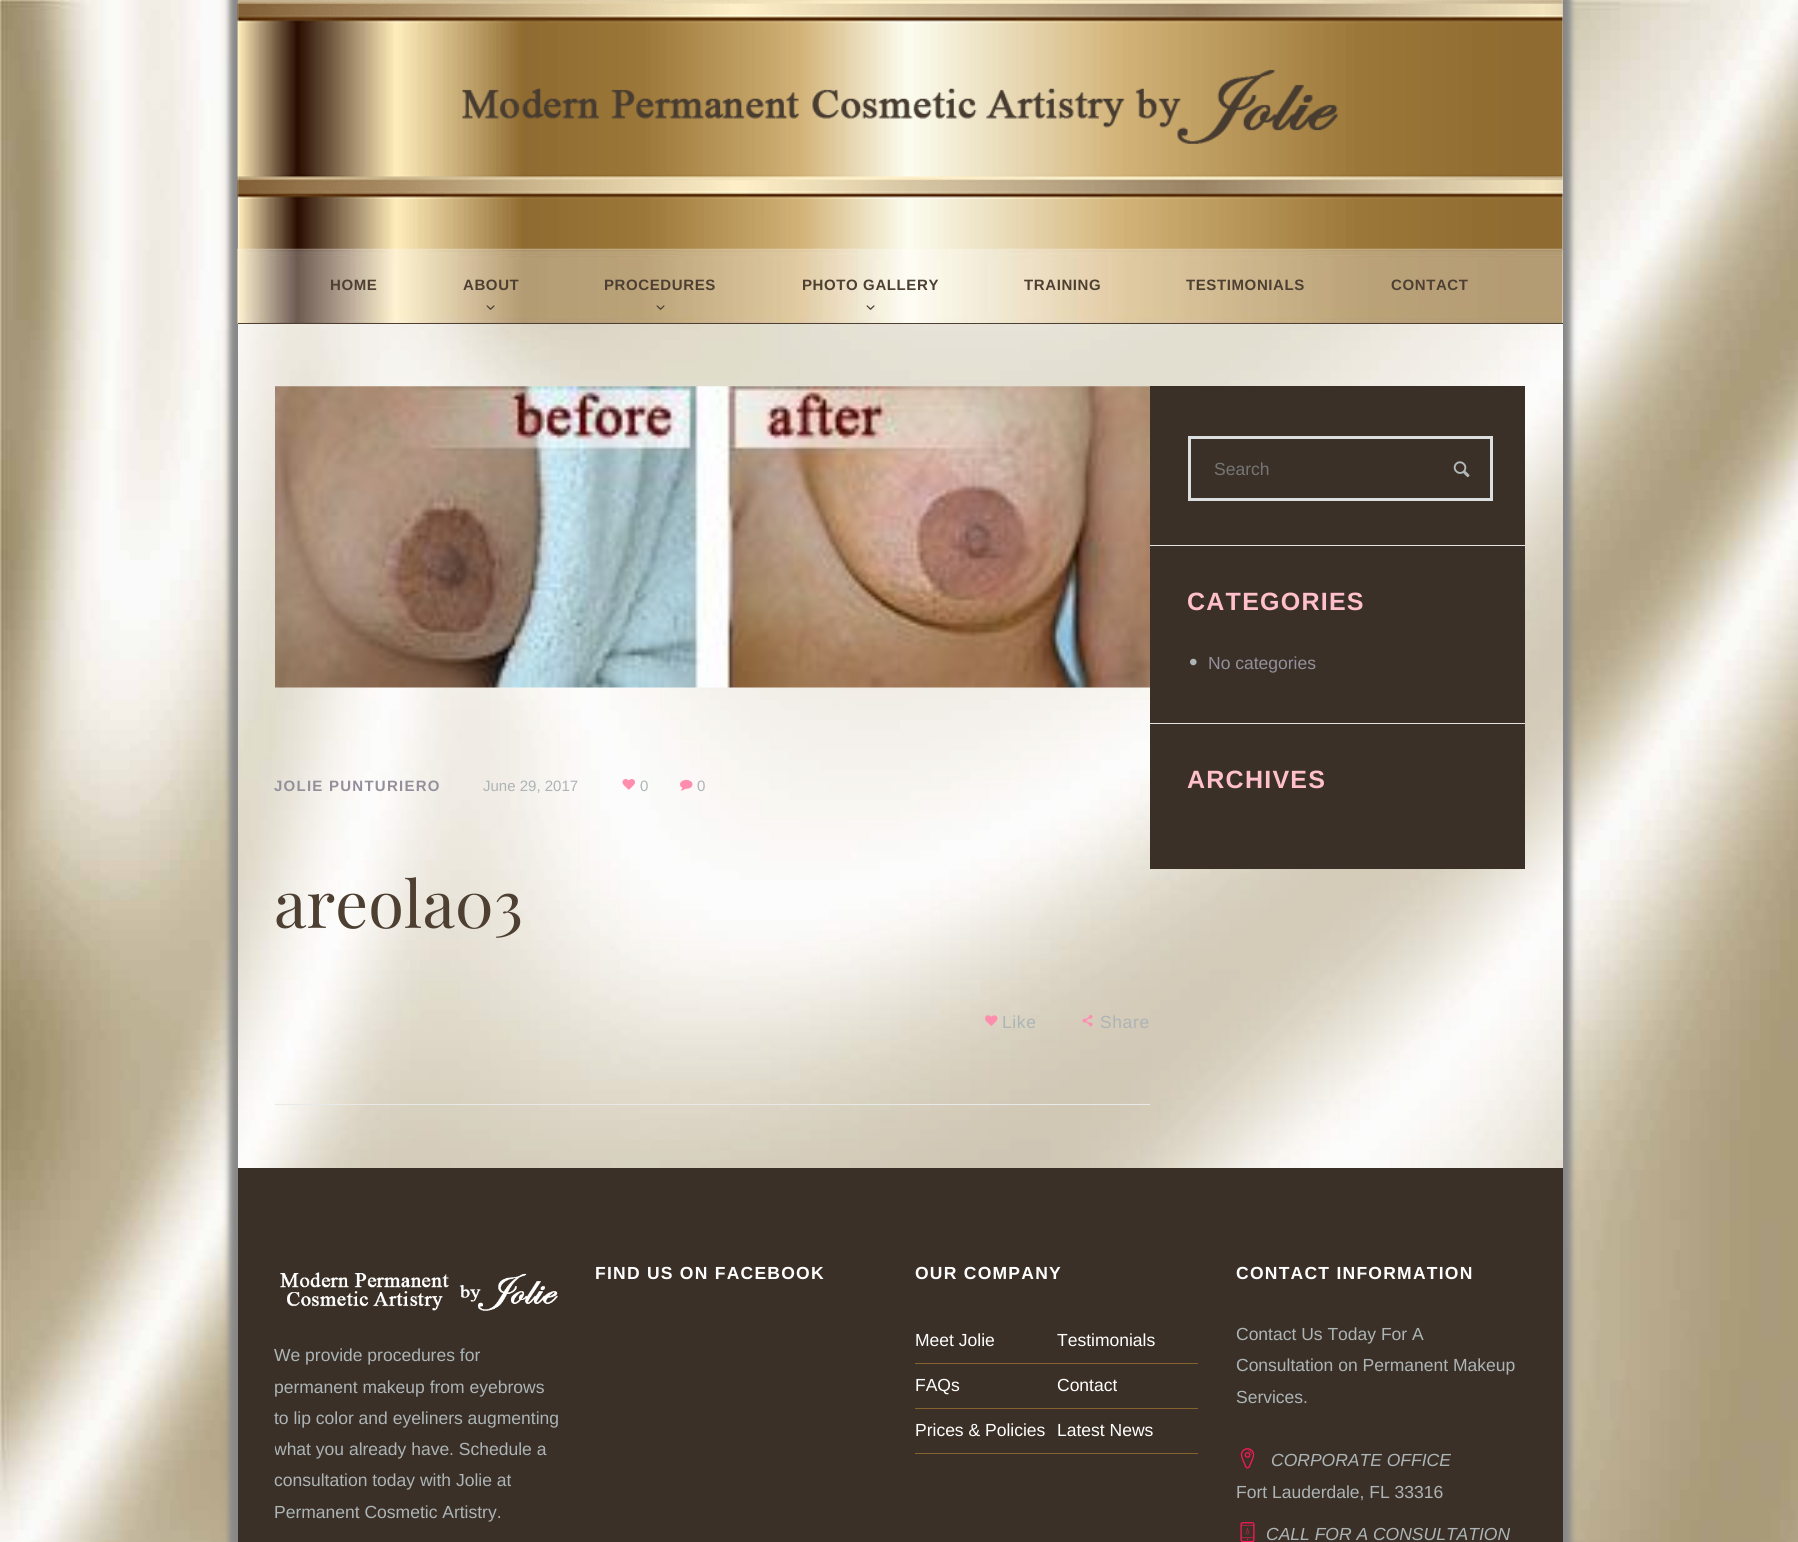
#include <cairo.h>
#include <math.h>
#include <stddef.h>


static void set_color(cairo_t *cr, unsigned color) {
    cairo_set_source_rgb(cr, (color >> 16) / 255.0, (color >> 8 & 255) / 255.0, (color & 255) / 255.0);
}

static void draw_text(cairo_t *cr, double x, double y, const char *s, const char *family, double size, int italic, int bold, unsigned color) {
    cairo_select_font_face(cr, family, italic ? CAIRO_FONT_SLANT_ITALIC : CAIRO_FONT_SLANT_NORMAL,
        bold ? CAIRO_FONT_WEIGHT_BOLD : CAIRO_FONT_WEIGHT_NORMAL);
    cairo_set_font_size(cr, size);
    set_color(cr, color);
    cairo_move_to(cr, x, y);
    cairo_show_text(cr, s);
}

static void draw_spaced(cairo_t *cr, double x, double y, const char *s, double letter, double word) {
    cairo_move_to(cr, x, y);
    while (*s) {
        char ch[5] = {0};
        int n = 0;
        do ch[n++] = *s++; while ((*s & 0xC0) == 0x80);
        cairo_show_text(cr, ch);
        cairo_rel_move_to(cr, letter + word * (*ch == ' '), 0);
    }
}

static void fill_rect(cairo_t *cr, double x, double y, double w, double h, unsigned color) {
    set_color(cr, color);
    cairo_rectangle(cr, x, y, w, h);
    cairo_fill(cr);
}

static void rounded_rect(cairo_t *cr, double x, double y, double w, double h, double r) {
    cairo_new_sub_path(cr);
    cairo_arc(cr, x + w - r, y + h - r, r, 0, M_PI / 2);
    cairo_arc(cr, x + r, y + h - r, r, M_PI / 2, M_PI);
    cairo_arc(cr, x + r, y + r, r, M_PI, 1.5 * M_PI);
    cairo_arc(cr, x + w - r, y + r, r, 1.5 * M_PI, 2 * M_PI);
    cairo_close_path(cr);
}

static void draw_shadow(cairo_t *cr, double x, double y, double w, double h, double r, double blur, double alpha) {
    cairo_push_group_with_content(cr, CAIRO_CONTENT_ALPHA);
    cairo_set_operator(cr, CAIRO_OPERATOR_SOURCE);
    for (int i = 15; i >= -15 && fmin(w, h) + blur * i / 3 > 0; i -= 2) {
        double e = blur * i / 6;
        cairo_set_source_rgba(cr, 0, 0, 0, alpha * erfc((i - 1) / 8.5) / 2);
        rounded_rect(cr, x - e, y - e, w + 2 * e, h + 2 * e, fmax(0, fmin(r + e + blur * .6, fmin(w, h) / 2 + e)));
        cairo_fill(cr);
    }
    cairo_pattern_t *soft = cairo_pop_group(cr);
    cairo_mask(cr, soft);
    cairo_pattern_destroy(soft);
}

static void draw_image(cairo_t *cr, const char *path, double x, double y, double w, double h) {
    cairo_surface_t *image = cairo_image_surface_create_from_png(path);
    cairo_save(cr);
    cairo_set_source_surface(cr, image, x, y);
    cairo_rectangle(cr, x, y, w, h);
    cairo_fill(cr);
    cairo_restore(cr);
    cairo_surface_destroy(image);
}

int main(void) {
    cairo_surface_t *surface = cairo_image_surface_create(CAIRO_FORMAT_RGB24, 1798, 1542);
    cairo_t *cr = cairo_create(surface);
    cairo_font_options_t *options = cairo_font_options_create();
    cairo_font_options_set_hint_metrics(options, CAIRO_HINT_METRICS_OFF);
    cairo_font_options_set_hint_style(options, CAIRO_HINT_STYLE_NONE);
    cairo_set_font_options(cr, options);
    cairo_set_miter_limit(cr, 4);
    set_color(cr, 0xFFFFFF);
    cairo_paint(cr);
    draw_image(cr, "assets/img1.png", 0, 0, 1798, 1542);
    cairo_save(cr);
    cairo_set_fill_rule(cr, CAIRO_FILL_RULE_EVEN_ODD);
    cairo_new_path(cr);
    cairo_move_to(cr, 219, 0);
    cairo_line_to(cr, 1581, 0);
    cairo_line_to(cr, 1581, 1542);
    cairo_line_to(cr, 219, 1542);
    cairo_close_path(cr);
    cairo_move_to(cr, 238, 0);
    cairo_line_to(cr, 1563, 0);
    cairo_line_to(cr, 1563, 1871);
    cairo_line_to(cr, 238, 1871);
    cairo_close_path(cr);
    cairo_clip(cr);
    set_color(cr, 0x888888);
    draw_shadow(cr, 229, -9, 1342, 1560, 0, 3, 1);
    cairo_restore(cr);
    draw_image(cr, "assets/img2.png", 237, 0, 1326, 250);
    draw_image(cr, "assets/img3.png", 462, 69, 876, 75);
    draw_image(cr, "assets/img4.png", 237, 248, 1326, 76);
    fill_rect(cr, 238, 323, 1325, 1, 0x4D4032);
    cairo_select_font_face(cr, "Arimo", CAIRO_FONT_SLANT_NORMAL, CAIRO_FONT_WEIGHT_BOLD);
    cairo_set_font_size(cr, 15);
    draw_spaced(cr, 330, 290, "HOME", 0.6, 0);
    draw_spaced(cr, 463, 290, "ABOUT", 0.6, 0);
    draw_image(cr, "assets/img5.png", 486, 305, 9, 5);
    draw_spaced(cr, 604, 290, "PROCEDURES", 0.6, 0);
    draw_image(cr, "assets/img6.png", 656, 305, 9, 5);
    draw_spaced(cr, 802, 290, "PHOTO GALLERY", 0.6, 0);
    draw_image(cr, "assets/img7.png", 866, 305, 9, 5);
    draw_spaced(cr, 1024, 290, "TRAINING", 0.6, 0);
    draw_spaced(cr, 1186, 290, "TESTIMONIALS", 0.6, 0);
    draw_spaced(cr, 1391, 290, "CONTACT", 0.6, 0);
    cairo_set_source_rgba(cr, 1, 1, 1, 0.4);
    cairo_rectangle(cr, 238, 324, 1325, 844);
    cairo_fill(cr);
    fill_rect(cr, 1150, 386, 375, 483, 0x3A3027);
    cairo_rectangle(cr, 1189.5, 437.5, 302, 62);
    set_color(cr, 0xDCDFE0);
    cairo_set_line_width(cr, 3);
    cairo_stroke(cr);
    draw_text(cr, 1214, 475, "Search", "Arimo", 17.5, 0, 0, 0x757575);
    draw_image(cr, "assets/img8.png", 1453, 461, 17, 17);
    fill_rect(cr, 1150, 545, 375, 1, 0xE0E2E4);
    cairo_select_font_face(cr, "Arimo", CAIRO_FONT_SLANT_NORMAL, CAIRO_FONT_WEIGHT_BOLD);
    cairo_set_font_size(cr, 25);
    set_color(cr, 0xFFC0CB);
    draw_spaced(cr, 1187, 610, "CATEGORIES", 1.25, 0);
    draw_image(cr, "assets/img9.png", 1190, 658, 7, 8);
    draw_text(cr, 1208, 669, "No categories", "Arimo", 17.5, 0, 0, 0x93909C);
    fill_rect(cr, 1150, 723, 375, 1, 0xE0E2E4);
    cairo_select_font_face(cr, "Arimo", CAIRO_FONT_SLANT_NORMAL, CAIRO_FONT_WEIGHT_BOLD);
    cairo_set_font_size(cr, 25);
    set_color(cr, 0xFFC0CB);
    draw_spaced(cr, 1187, 788, "ARCHIVES", 1.25, 0);
    fill_rect(cr, 275, 1104, 875, 1, 0xE8E9E9);
    draw_image(cr, "assets/img10.png", 275, 386, 875, 302);
    cairo_set_font_size(cr, 15);
    set_color(cr, 0x93909C);
    draw_spaced(cr, 274, 791, "JOLIE PUNTURIERO", 1.25, 0);
    draw_text(cr, 483, 791, "June 29, 2017", "Arimo", 15, 0, 0, 0xACB4B6);
    draw_image(cr, "assets/img11.png", 622, 779, 13, 11);
    draw_text(cr, 640, 791, "0", "Arimo", 15, 0, 0, 0xACB4B6);
    draw_image(cr, "assets/img12.png", 680, 779, 13, 12);
    draw_text(cr, 697, 791, "0", "Arimo", 15, 0, 0, 0xACB4B6);
    draw_text(cr, 274, 928, "areola03", "Playfair Display", 65, 0, 0, 0x4D4032);
    draw_image(cr, "assets/img13.png", 985, 1015, 13, 11);
    cairo_select_font_face(cr, "Arimo", CAIRO_FONT_SLANT_NORMAL, CAIRO_FONT_WEIGHT_NORMAL);
    cairo_set_font_size(cr, 17.5);
    set_color(cr, 0xACB4B6);
    draw_spaced(cr, 1002, 1028, "Like", 0.6, 0);
    draw_image(cr, "assets/img14.png", 1082, 1015, 11, 12);
    draw_spaced(cr, 1100, 1028, "Share", 0.6, 0);
    fill_rect(cr, 238, 1168, 1325, 374, 0x3A3027);
    draw_image(cr, "assets/img15.png", 280, 1272, 278, 39);
    draw_text(cr, 274, 1361, "We provide procedures for", "Arimo", 17.5, 0, 0, 0xACB4B6);
    draw_text(cr, 274, 1393, "permanent makeup from eyebrows", "Arimo", 17.5, 0, 0, 0xACB4B6);
    draw_text(cr, 274, 1424, "to lip color and eyeliners augmenting", "Arimo", 17.5, 0, 0, 0xACB4B6);
    cairo_save(cr);
    cairo_rectangle(cr, 275, 1261, 1281, 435);
    cairo_clip(cr);
    draw_text(cr, 274, 1455, "what you already have. Schedule a", "Arimo", 17.5, 0, 0, 0xACB4B6);
    cairo_restore(cr);
    draw_text(cr, 274, 1486, "consultation today with Jolie at", "Arimo", 17.5, 0, 0, 0xACB4B6);
    draw_text(cr, 274, 1518, "Permanent Cosmetic Artistry.", "Arimo", 17.5, 0, 0, 0xACB4B6);
    cairo_select_font_face(cr, "Arimo", CAIRO_FONT_SLANT_NORMAL, CAIRO_FONT_WEIGHT_BOLD);
    set_color(cr, 0xFFFFFF);
    draw_spaced(cr, 595, 1279, "FIND US ON FACEBOOK", 1.25, 0);
    draw_spaced(cr, 915, 1279, "OUR COMPANY", 1.25, 0);
    fill_rect(cr, 915, 1363, 283, 1, 0x86632E);
    draw_text(cr, 915, 1346, "Meet Jolie", "Arimo", 17.5, 0, 0, 0xFFFFFF);
    draw_text(cr, 1057, 1346, "Testimonials", "Arimo", 17.5, 0, 0, 0xFFFFFF);
    fill_rect(cr, 915, 1408, 283, 1, 0x86632E);
    draw_text(cr, 915, 1391, "FAQs", "Arimo", 17.5, 0, 0, 0xFFFFFF);
    draw_text(cr, 1057, 1391, "Contact", "Arimo", 17.5, 0, 0, 0xFFFFFF);
    fill_rect(cr, 915, 1453, 283, 1, 0x86632E);
    draw_text(cr, 915, 1436, "Prices & Policies", "Arimo", 17.5, 0, 0, 0xFFFFFF);
    draw_text(cr, 1057, 1436, "Latest News", "Arimo", 17.5, 0, 0, 0xFFFFFF);
    cairo_select_font_face(cr, "Arimo", CAIRO_FONT_SLANT_NORMAL, CAIRO_FONT_WEIGHT_BOLD);
    draw_spaced(cr, 1236, 1279, "CONTACT INFORMATION", 1.25, 0);
    draw_text(cr, 1236, 1340, "Contact Us Today For A", "Arimo", 17.5, 0, 0, 0xACB4B6);
    draw_text(cr, 1236, 1371, "Consultation on Permanent Makeup", "Arimo", 17.5, 0, 0, 0xACB4B6);
    draw_text(cr, 1236, 1403, "Services.", "Arimo", 17.5, 0, 0, 0xACB4B6);
    draw_image(cr, "assets/img16.png", 1240, 1448, 15, 21);
    draw_text(cr, 1271, 1466, "CORPORATE OFFICE", "Arimo", 17.5, 1, 0, 0xACB4B6);
    draw_text(cr, 1236, 1498, "Fort Lauderdale, FL 33316", "Arimo", 17.5, 0, 0, 0xACB4B6);
    draw_image(cr, "assets/img17.png", 1240, 1522, 15, 20);
    draw_text(cr, 1266, 1540, "CALL FOR A CONSULTATION", "Arimo", 17.5, 1, 0, 0xACB4B6);
    cairo_surface_write_to_png(surface, "output.png");
    cairo_font_options_destroy(options);
    cairo_destroy(cr);
    cairo_surface_destroy(surface);
    return 0;
}
